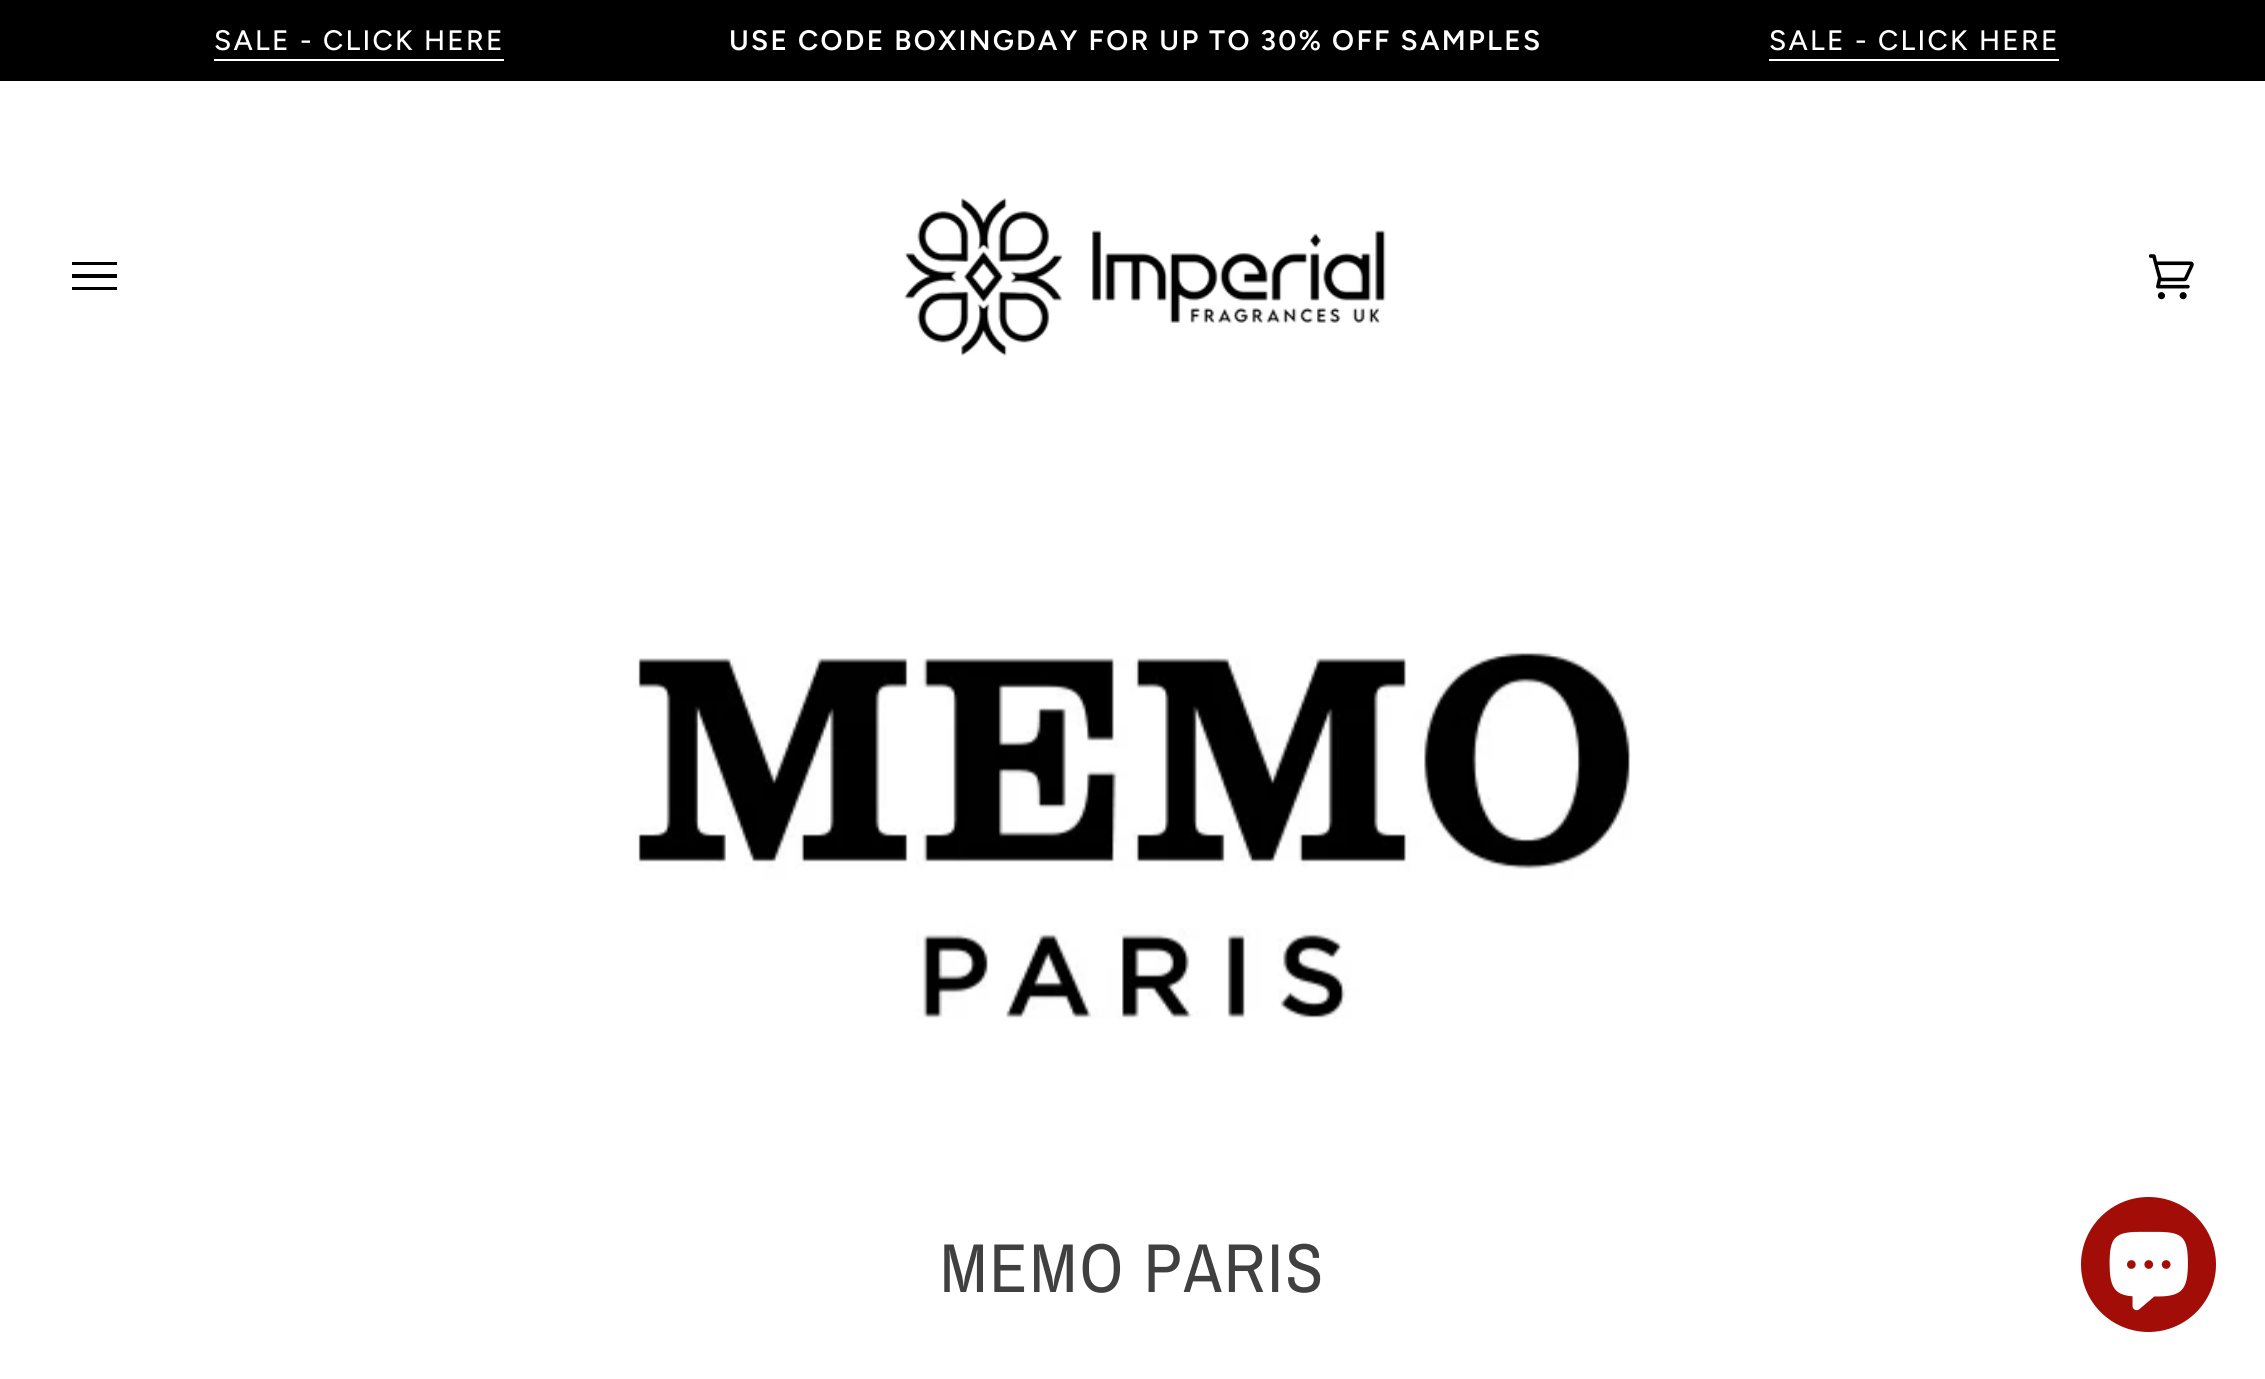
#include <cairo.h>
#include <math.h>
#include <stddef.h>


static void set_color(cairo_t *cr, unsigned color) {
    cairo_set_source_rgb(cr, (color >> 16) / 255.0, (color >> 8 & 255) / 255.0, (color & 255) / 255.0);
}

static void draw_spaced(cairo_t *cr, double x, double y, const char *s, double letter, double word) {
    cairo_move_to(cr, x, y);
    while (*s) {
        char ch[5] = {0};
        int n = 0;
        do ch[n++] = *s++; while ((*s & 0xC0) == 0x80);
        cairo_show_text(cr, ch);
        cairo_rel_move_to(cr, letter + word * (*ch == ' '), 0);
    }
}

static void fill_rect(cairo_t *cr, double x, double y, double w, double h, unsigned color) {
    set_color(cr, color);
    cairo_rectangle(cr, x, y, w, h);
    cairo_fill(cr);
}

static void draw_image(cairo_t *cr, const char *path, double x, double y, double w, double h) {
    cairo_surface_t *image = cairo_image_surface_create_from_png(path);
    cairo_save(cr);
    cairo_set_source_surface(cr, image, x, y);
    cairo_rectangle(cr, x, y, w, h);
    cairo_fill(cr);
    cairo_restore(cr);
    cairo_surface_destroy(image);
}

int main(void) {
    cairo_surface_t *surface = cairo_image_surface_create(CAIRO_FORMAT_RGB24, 2265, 1379);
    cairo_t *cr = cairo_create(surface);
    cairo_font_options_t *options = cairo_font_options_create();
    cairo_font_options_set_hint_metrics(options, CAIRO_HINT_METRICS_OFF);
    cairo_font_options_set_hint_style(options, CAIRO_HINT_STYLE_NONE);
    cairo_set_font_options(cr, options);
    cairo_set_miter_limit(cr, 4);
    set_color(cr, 0xFFFFFF);
    cairo_paint(cr);
    fill_rect(cr, 0, 0, 2265, 81, 0x000000);
    cairo_select_font_face(cr, "Figtree Medium", CAIRO_FONT_SLANT_NORMAL, CAIRO_FONT_WEIGHT_NORMAL);
    cairo_set_font_size(cr, 28.1);
    set_color(cr, 0xFFFFFF);
    draw_spaced(cr, 214, 50, "SALE - CLICK HERE", 2.25, 0);
    fill_rect(cr, 214, 59, 290, 2, 0xFFFFFF);
    cairo_select_font_face(cr, "Figtree SemiBold", CAIRO_FONT_SLANT_NORMAL, CAIRO_FONT_WEIGHT_NORMAL);
    draw_spaced(cr, 729, 50, "USE CODE BOXINGDAY FOR UP TO 30% OFF SAMPLES", 2.25, -0.25);
    cairo_select_font_face(cr, "Figtree Medium", CAIRO_FONT_SLANT_NORMAL, CAIRO_FONT_WEIGHT_NORMAL);
    draw_spaced(cr, 1769, 50, "SALE - CLICK HERE", 2.25, 0);
    fill_rect(cr, 1769, 59, 290, 2, 0xFFFFFF);
    set_color(cr, 0x000000);
    cairo_new_path(cr);
    cairo_move_to(cr, 72, 262);
    cairo_line_to(cr, 117, 262);
    cairo_line_to(cr, 117, 265);
    cairo_line_to(cr, 72, 265);
    cairo_close_path(cr);
    cairo_move_to(cr, 72, 274);
    cairo_line_to(cr, 117, 274);
    cairo_line_to(cr, 117, 278);
    cairo_line_to(cr, 72, 278);
    cairo_close_path(cr);
    cairo_move_to(cr, 72, 287);
    cairo_line_to(cr, 117, 287);
    cairo_line_to(cr, 117, 290);
    cairo_line_to(cr, 72, 290);
    cairo_close_path(cr);
    cairo_fill(cr);
    draw_image(cr, "assets/img1.png", 904, 198, 482, 158);
    draw_image(cr, "assets/img2.png", 2149, 254, 45, 46);
    draw_image(cr, "assets/img3.png", 635, 650, 996, 369);
    cairo_select_font_face(cr, "Archivo Narrow", CAIRO_FONT_SLANT_NORMAL, CAIRO_FONT_WEIGHT_NORMAL);
    cairo_set_font_size(cr, 69.25);
    set_color(cr, 0x404040);
    draw_spaced(cr, 940, 1292, "MEMO PARIS", 2.25, 0);
    set_color(cr, 0xA20D08);
    cairo_new_path(cr);
    cairo_arc(cr, 2148.5, 1264.5, 67.5, 0, 2 * M_PI);
    cairo_fill(cr);
    draw_image(cr, "assets/img4.png", 2109, 1231, 79, 80);
    cairo_surface_write_to_png(surface, "output.png");
    cairo_font_options_destroy(options);
    cairo_destroy(cr);
    cairo_surface_destroy(surface);
    return 0;
}
